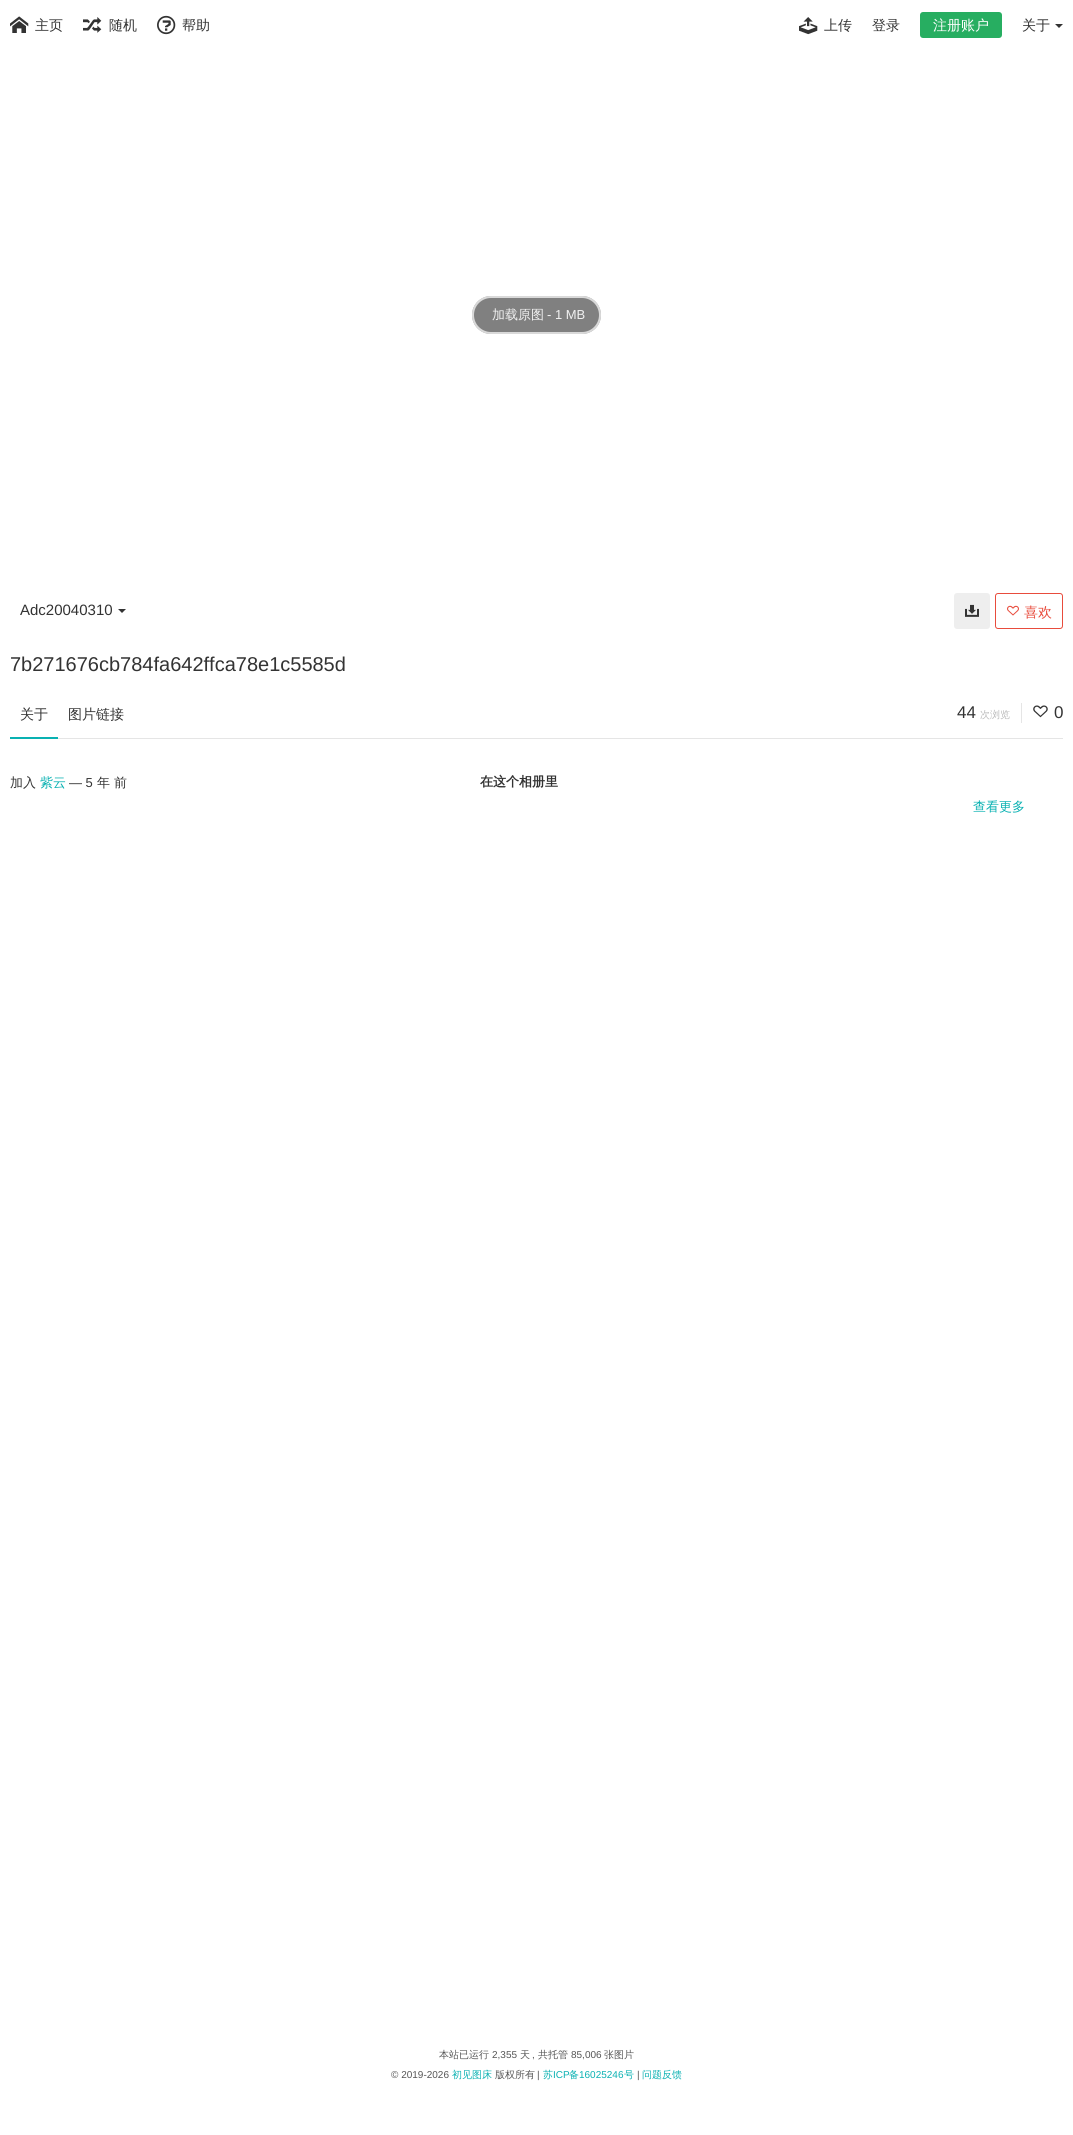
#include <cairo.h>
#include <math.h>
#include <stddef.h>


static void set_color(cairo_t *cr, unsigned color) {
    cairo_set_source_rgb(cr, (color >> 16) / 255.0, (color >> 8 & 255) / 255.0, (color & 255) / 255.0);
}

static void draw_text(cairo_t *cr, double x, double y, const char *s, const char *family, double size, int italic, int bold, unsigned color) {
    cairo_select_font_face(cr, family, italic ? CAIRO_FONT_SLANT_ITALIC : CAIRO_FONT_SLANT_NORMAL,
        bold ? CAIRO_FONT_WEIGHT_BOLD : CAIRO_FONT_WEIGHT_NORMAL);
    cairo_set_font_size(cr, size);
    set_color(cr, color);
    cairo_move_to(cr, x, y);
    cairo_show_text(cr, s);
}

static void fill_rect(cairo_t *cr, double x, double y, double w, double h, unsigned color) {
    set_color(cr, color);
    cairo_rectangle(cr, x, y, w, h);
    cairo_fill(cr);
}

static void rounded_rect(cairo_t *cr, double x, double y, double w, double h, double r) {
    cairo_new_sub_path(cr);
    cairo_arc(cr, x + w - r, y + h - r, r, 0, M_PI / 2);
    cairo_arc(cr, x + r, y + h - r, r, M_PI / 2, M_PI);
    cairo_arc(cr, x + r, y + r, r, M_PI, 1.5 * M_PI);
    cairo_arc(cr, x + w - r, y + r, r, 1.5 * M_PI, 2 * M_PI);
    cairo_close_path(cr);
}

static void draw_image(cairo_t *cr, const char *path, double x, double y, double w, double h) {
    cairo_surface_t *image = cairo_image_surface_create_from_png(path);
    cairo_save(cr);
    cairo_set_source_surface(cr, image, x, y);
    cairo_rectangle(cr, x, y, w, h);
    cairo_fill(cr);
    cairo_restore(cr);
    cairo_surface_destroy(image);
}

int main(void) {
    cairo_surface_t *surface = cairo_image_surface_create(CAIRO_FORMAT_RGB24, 1073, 2135);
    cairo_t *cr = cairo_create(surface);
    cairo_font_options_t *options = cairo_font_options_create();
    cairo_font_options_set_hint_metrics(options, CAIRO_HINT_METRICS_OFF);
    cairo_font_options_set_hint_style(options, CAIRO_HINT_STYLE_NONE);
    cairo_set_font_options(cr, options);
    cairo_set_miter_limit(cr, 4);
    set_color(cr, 0xFFFFFF);
    cairo_paint(cr);
    draw_image(cr, "assets/img1.png", 10, 16, 19, 17);
    draw_text(cr, 35, 30, "主页", "WenQuanYi Zen Hei Medium", 14, 0, 0, 0x333333);
    draw_image(cr, "assets/img2.png", 83, 17, 19, 16);
    draw_text(cr, 109, 30, "随机", "WenQuanYi Zen Hei Medium", 14, 0, 0, 0x333333);
    draw_image(cr, "assets/img3.png", 157, 15, 19, 20);
    draw_text(cr, 182, 30, "帮助", "WenQuanYi Zen Hei Medium", 14, 0, 0, 0x333333);
    draw_image(cr, "assets/img4.png", 799, 17, 19, 18);
    draw_text(cr, 824, 30, "上传", "WenQuanYi Zen Hei Medium", 14, 0, 0, 0x333333);
    draw_text(cr, 872, 30, "登录", "WenQuanYi Zen Hei Medium", 14, 0, 0, 0x333333);
    set_color(cr, 0x27AE61);
    rounded_rect(cr, 920, 12, 82, 26, 3);
    cairo_fill(cr);
    draw_text(cr, 933, 30, "注册账户", "WenQuanYi Zen Hei Medium", 14, 0, 0, 0xFFFFFF);
    draw_text(cr, 1022, 30, "关于", "WenQuanYi Zen Hei Medium", 14, 0, 0, 0x333333);
    cairo_new_path(cr);
    cairo_move_to(cr, 1055, 24);
    cairo_line_to(cr, 1063, 24);
    cairo_line_to(cr, 1059, 28);
    cairo_close_path(cr);
    cairo_fill(cr);
    set_color(cr, 0x808080);
    rounded_rect(cr, 472, 296, 129, 38, 19);
    cairo_fill(cr);
    rounded_rect(cr, 473, 297, 127, 36, 18);
    cairo_set_source_rgba(cr, 1, 1, 1, 0.7);
    cairo_stroke(cr);
    draw_text(cr, 492, 319, "加载原图", "WenQuanYi Zen Hei Medium", 13, 0, 0, 0xF2F2F2);
    draw_text(cr, 547, 319, "- 1 MB", "Liberation Sans", 13, 0, 0, 0xF2F2F2);
    draw_text(cr, 20, 615, "Adc20040310", "Liberation Sans", 15, 0, 0, 0x333333);
    cairo_new_path(cr);
    cairo_move_to(cr, 118, 609);
    cairo_line_to(cr, 126, 609);
    cairo_line_to(cr, 122, 613);
    cairo_close_path(cr);
    cairo_fill(cr);
    set_color(cr, 0xEEEEEE);
    rounded_rect(cr, 954, 593, 36, 36, 3);
    cairo_fill(cr);
    draw_image(cr, "assets/img5.png", 965, 604, 14, 13);
    rounded_rect(cr, 995.5, 593.5, 67, 35, 2.5);
    set_color(cr, 0xE84C3D);
    cairo_set_line_width(cr, 1);
    cairo_stroke(cr);
    draw_image(cr, "assets/img6.png", 1007, 605, 12, 11);
    draw_text(cr, 1024, 617, "喜欢", "WenQuanYi Zen Hei Medium", 14, 0, 0, 0xE84C3D);
    draw_text(cr, 10, 671, "7b271676cb784fa642ffca78e1c5585d", "Liberation Sans", 20, 0, 0, 0x333333);
    fill_rect(cr, 58, 738, 1005, 1, 0xE5E5E5);
    fill_rect(cr, 10, 737, 48, 2, 0x09B1B2);
    draw_text(cr, 20, 719, "关于", "WenQuanYi Zen Hei Medium", 14, 0, 0, 0x333333);
    draw_text(cr, 68, 719, "图片链接", "WenQuanYi Zen Hei Medium", 14, 0, 0, 0x333333);
    draw_text(cr, 957, 718, "44", "Liberation Sans", 17, 0, 0, 0x333333);
    draw_text(cr, 980, 718, "次浏览", "WenQuanYi Zen Hei Medium", 10, 0, 0, 0xBBBBBB);
    fill_rect(cr, 1021, 703, 1, 20, 0xE5E5E5);
    draw_image(cr, "assets/img7.png", 1033, 705, 15, 13);
    draw_text(cr, 1054, 718, "0", "Liberation Sans", 17, 0, 0, 0x333333);
    draw_text(cr, 10, 787, "加入", "WenQuanYi Zen Hei Medium", 13, 0, 0, 0x333333);
    draw_text(cr, 40, 787, "紫云", "WenQuanYi Zen Hei Medium", 13, 0, 0, 0x09B1B2);
    draw_text(cr, 69, 787, "— 5", "Liberation Sans", 13, 0, 0, 0x333333);
    draw_text(cr, 97, 787, "年 前", "WenQuanYi Zen Hei Medium", 13, 0, 0, 0x333333);
    draw_text(cr, 480, 786, "在这个相册里", "WenQuanYi Zen Hei", 13, 0, 1, 0x333333);
    draw_text(cr, 973, 811, "查看更多", "WenQuanYi Zen Hei Medium", 13, 0, 0, 0x09B1B2);
    draw_text(cr, 439, 2058, "本站已运行", "WenQuanYi Zen Hei Medium", 10, 0, 0, 0x555555);
    draw_text(cr, 492, 2058, "2,355", "Liberation Sans", 10, 0, 0, 0x555555);
    draw_text(cr, 520, 2058, "天", "WenQuanYi Zen Hei Medium", 10, 0, 0, 0x555555);
    draw_text(cr, 532, 2058, ",", "Liberation Sans", 10, 0, 0, 0x555555);
    draw_text(cr, 538, 2058, "共托管", "WenQuanYi Zen Hei Medium", 10, 0, 0, 0x555555);
    draw_text(cr, 571, 2058, "85,006", "Liberation Sans", 10, 0, 0, 0x555555);
    draw_text(cr, 604, 2058, "张图片", "WenQuanYi Zen Hei Medium", 10, 0, 0, 0x555555);
    draw_text(cr, 391, 2078, "© 2019-2026", "Liberation Sans", 10, 0, 0, 0x555555);
    draw_text(cr, 452, 2078, "初见图床", "WenQuanYi Zen Hei Medium", 10, 0, 0, 0x09B1B2);
    draw_text(cr, 495, 2078, "版权所有", "WenQuanYi Zen Hei Medium", 10, 0, 0, 0x555555);
    draw_text(cr, 537, 2078, "|", "Liberation Sans", 10, 0, 0, 0x555555);
    draw_text(cr, 543, 2078, "苏", "WenQuanYi Zen Hei Medium", 10, 0, 0, 0x09B1B2);
    draw_text(cr, 553, 2078, "ICP", "Liberation Sans", 10, 0, 0, 0x09B1B2);
    draw_text(cr, 569, 2078, "备", "WenQuanYi Zen Hei Medium", 10, 0, 0, 0x09B1B2);
    draw_text(cr, 579, 2078, "16025246", "Liberation Sans", 10, 0, 0, 0x09B1B2);
    draw_text(cr, 624, 2078, "号", "WenQuanYi Zen Hei Medium", 10, 0, 0, 0x09B1B2);
    draw_text(cr, 637, 2078, "|", "Liberation Sans", 10, 0, 0, 0x555555);
    draw_text(cr, 642, 2078, "问题反馈", "WenQuanYi Zen Hei Medium", 10, 0, 0, 0x09B1B2);
    cairo_surface_write_to_png(surface, "output.png");
    cairo_font_options_destroy(options);
    cairo_destroy(cr);
    cairo_surface_destroy(surface);
    return 0;
}
